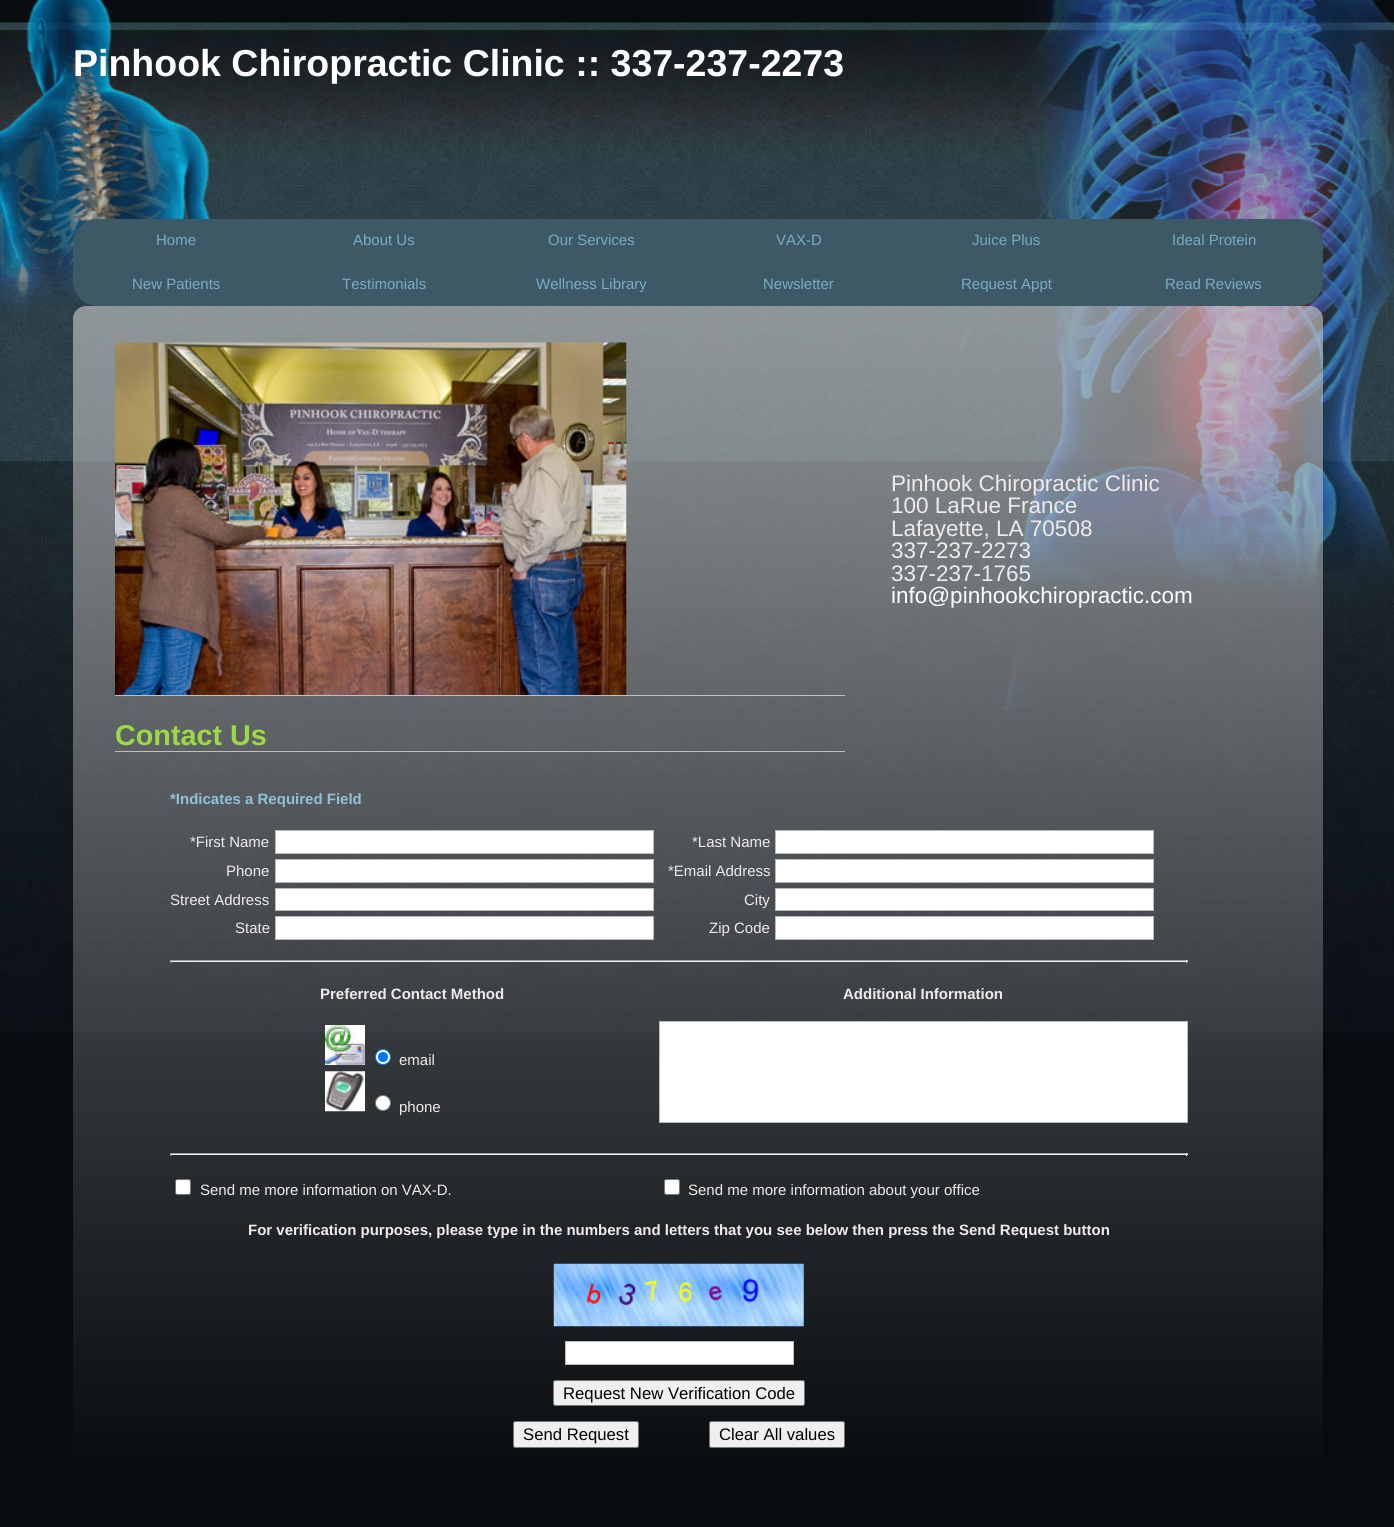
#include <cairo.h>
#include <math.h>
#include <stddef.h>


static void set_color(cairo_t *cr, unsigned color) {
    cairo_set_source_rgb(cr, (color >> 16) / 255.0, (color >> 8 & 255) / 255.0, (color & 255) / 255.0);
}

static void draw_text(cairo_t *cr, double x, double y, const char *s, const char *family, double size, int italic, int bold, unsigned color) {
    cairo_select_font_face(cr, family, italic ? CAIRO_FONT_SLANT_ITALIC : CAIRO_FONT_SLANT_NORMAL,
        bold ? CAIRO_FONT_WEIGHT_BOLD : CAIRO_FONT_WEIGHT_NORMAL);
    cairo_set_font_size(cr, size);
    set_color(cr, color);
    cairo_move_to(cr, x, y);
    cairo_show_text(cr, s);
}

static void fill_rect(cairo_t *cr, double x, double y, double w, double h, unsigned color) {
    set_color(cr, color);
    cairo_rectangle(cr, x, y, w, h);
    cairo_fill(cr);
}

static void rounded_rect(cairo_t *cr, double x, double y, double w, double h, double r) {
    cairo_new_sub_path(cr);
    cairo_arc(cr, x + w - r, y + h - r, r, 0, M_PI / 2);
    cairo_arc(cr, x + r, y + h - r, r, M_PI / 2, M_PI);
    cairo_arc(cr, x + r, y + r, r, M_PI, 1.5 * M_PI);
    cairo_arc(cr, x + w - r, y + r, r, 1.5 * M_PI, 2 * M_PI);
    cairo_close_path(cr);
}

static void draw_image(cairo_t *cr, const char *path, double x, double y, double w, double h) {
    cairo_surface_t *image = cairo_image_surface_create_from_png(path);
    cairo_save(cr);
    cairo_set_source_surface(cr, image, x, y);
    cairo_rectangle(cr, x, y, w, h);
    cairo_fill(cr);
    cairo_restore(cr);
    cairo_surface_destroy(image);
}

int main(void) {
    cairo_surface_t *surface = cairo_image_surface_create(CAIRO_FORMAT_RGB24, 1394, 1527);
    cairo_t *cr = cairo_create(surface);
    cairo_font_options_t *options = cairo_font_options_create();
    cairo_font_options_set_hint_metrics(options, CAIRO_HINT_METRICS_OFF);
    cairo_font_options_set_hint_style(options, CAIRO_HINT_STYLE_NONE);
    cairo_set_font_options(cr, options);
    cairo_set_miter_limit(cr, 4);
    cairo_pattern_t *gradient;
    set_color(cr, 0x080C0F);
    cairo_paint(cr);
    draw_image(cr, "assets/img1.png", 0, 20, 1394, 1013);
    draw_image(cr, "assets/img2.png", 0, 0, 1394, 710);
    draw_text(cr, 73, 76, "Pinhook Chiropractic Clinic :: 337-237-2273", "Liberation Sans", 37.5, 0, 1, 0xFFFFFF);
    set_color(cr, 0x3D5966);
    rounded_rect(cr, 73, 219, 1250, 87, 25);
    cairo_fill(cr);
    draw_text(cr, 156, 245, "Home", "Liberation Sans", 15, 0, 0, 0x7AACC3);
    draw_text(cr, 353, 245, "About Us", "Liberation Sans", 15, 0, 0, 0x7AACC3);
    draw_text(cr, 548, 245, "Our Services", "Liberation Sans", 15, 0, 0, 0x7AACC3);
    draw_text(cr, 776, 245, "VAX-D", "Liberation Sans", 15, 0, 0, 0x7AACC3);
    draw_text(cr, 972, 245, "Juice Plus", "Liberation Sans", 15, 0, 0, 0x7AACC3);
    draw_text(cr, 1172, 245, "Ideal Protein", "Liberation Sans", 15, 0, 0, 0x7AACC3);
    draw_text(cr, 132, 289, "New Patients", "Liberation Sans", 15, 0, 0, 0x7AACC3);
    draw_text(cr, 342, 289, "Testimonials", "Liberation Sans", 15, 0, 0, 0x7AACC3);
    draw_text(cr, 536, 289, "Wellness Library", "Liberation Sans", 15, 0, 0, 0x7AACC3);
    draw_text(cr, 763, 289, "Newsletter", "Liberation Sans", 15, 0, 0, 0x7AACC3);
    draw_text(cr, 961, 289, "Request Appt", "Liberation Sans", 15, 0, 0, 0x7AACC3);
    draw_text(cr, 1165, 289, "Read Reviews", "Liberation Sans", 15, 0, 0, 0x7AACC3);
    gradient = cairo_pattern_create_linear(697, 306, 698, 1475);
    cairo_pattern_add_color_stop_rgba(gradient, 0, 0.769, 0.769, 0.769, 0.65);
    cairo_pattern_add_color_stop_rgba(gradient, 1, 0.769, 0.769, 0.769, 0);
    cairo_set_source(cr, gradient);
    cairo_pattern_destroy(gradient);
    rounded_rect(cr, 73, 306, 1250, 1169, 13);
    cairo_fill(cr);
    draw_text(cr, 891, 491, "Pinhook Chiropractic Clinic", "Liberation Sans", 22.5, 0, 0, 0xEFEBEB);
    draw_text(cr, 891, 513, "100 LaRue France", "Liberation Sans", 22.5, 0, 0, 0xEFEBEB);
    draw_text(cr, 891, 536, "Lafayette, LA 70508", "Liberation Sans", 22.5, 0, 0, 0xEFEBEB);
    draw_text(cr, 891, 558, "337-237-2273", "Liberation Sans", 22.5, 0, 0, 0xEFEBEB);
    draw_text(cr, 891, 581, "337-237-1765", "Liberation Sans", 22.5, 0, 0, 0xEFEBEB);
    draw_text(cr, 891, 603, "info@pinhookchiropractic.com", "Liberation Sans", 22.5, 0, 0, 0xFFFFFF);
    fill_rect(cr, 115, 695, 730, 1, 0xC0C0C0);
    draw_image(cr, "assets/img3.png", 115, 342, 512, 353);
    fill_rect(cr, 115, 751, 730, 1, 0xC0C0C0);
    draw_text(cr, 115, 745, "Contact Us", "Liberation Sans", 28.75, 0, 1, 0x9ED945);
    draw_text(cr, 170, 804, "*Indicates a Required Field", "Liberation Sans", 15, 0, 1, 0x90C2D8);
    draw_text(cr, 190, 847, "*First Name", "Liberation Sans", 15, 0, 0, 0xEFEBEB);
    set_color(cr, 0xFFFFFF);
    cairo_rectangle(cr, 275.5, 830.5, 378, 23);
    cairo_fill_preserve(cr);
    set_color(cr, 0xBBBBBB);
    cairo_set_line_width(cr, 1);
    cairo_stroke(cr);
    draw_text(cr, 692, 847, "*Last Name", "Liberation Sans", 15, 0, 0, 0xEFEBEB);
    set_color(cr, 0xFFFFFF);
    cairo_rectangle(cr, 775.5, 830.5, 378, 23);
    cairo_fill_preserve(cr);
    set_color(cr, 0xBBBBBB);
    cairo_stroke(cr);
    draw_text(cr, 226, 876, "Phone", "Liberation Sans", 15, 0, 0, 0xEFEBEB);
    set_color(cr, 0xFFFFFF);
    cairo_rectangle(cr, 275.5, 859.5, 378, 23);
    cairo_fill_preserve(cr);
    set_color(cr, 0xBBBBBB);
    cairo_stroke(cr);
    draw_text(cr, 668, 876, "*Email Address", "Liberation Sans", 15, 0, 0, 0xEFEBEB);
    set_color(cr, 0xFFFFFF);
    cairo_rectangle(cr, 775.5, 859.5, 378, 23);
    cairo_fill_preserve(cr);
    set_color(cr, 0xBBBBBB);
    cairo_stroke(cr);
    draw_text(cr, 170, 905, "Street Address", "Liberation Sans", 15, 0, 0, 0xEFEBEB);
    set_color(cr, 0xFFFFFF);
    cairo_rectangle(cr, 275.5, 888.5, 378, 22);
    cairo_fill_preserve(cr);
    set_color(cr, 0xBBBBBB);
    cairo_stroke(cr);
    draw_text(cr, 744, 905, "City", "Liberation Sans", 15, 0, 0, 0xEFEBEB);
    set_color(cr, 0xFFFFFF);
    cairo_rectangle(cr, 775.5, 888.5, 378, 22);
    cairo_fill_preserve(cr);
    set_color(cr, 0xBBBBBB);
    cairo_stroke(cr);
    draw_text(cr, 235, 933, "State", "Liberation Sans", 15, 0, 0, 0xEFEBEB);
    set_color(cr, 0xFFFFFF);
    cairo_rectangle(cr, 275.5, 916.5, 378, 23);
    cairo_fill_preserve(cr);
    set_color(cr, 0xBBBBBB);
    cairo_stroke(cr);
    draw_text(cr, 709, 933, "Zip Code", "Liberation Sans", 15, 0, 0, 0xEFEBEB);
    set_color(cr, 0xFFFFFF);
    cairo_rectangle(cr, 775.5, 916.5, 378, 23);
    cairo_fill_preserve(cr);
    set_color(cr, 0xBBBBBB);
    cairo_stroke(cr);
    fill_rect(cr, 170, 960, 1018, 1, 0x9F9F9F);
    fill_rect(cr, 1186, 960, 1, 3, 0xEEEEEE);
    fill_rect(cr, 170, 961, 1018, 1, 0xEEEEEE);
    fill_rect(cr, 170, 960, 1, 3, 0x9F9F9F);
    draw_text(cr, 320, 999, "Preferred Contact Method", "Liberation Sans", 15, 0, 1, 0xEFEBEB);
    draw_text(cr, 843, 999, "Additional Information", "Liberation Sans", 15, 0, 1, 0xEFEBEB);
    draw_image(cr, "assets/img4.png", 325, 1025, 40, 40);
    set_color(cr, 0xFFFFFF);
    cairo_arc(cr, 383, 1057, 7.5, 0, 2 * M_PI);
    cairo_fill_preserve(cr);
    set_color(cr, 0x0075FF);
    cairo_stroke(cr);
    cairo_arc(cr, 383, 1057, 5, 0, 2 * M_PI);
    cairo_fill(cr);
    draw_text(cr, 399, 1065, "email", "Liberation Sans", 15, 0, 0, 0xEFEBEB);
    draw_image(cr, "assets/img5.png", 325, 1071, 40, 41);
    set_color(cr, 0xFFFFFF);
    cairo_arc(cr, 383, 1103, 7.5, 0, 2 * M_PI);
    cairo_fill_preserve(cr);
    set_color(cr, 0x767676);
    cairo_stroke(cr);
    draw_text(cr, 399, 1112, "phone", "Liberation Sans", 15, 0, 0, 0xEFEBEB);
    set_color(cr, 0xFFFFFF);
    cairo_rectangle(cr, 659.5, 1021.5, 528, 101);
    cairo_fill_preserve(cr);
    set_color(cr, 0xBBBBBB);
    cairo_stroke(cr);
    fill_rect(cr, 170, 1153, 1018, 1, 0x9F9F9F);
    fill_rect(cr, 1186, 1153, 1, 3, 0xEEEEEE);
    fill_rect(cr, 170, 1154, 1018, 1, 0xEEEEEE);
    fill_rect(cr, 170, 1153, 1, 3, 0x9F9F9F);
    set_color(cr, 0xFFFFFF);
    rounded_rect(cr, 175.5, 1179.5, 15, 15, 2);
    cairo_fill_preserve(cr);
    set_color(cr, 0x767676);
    cairo_stroke(cr);
    draw_text(cr, 200, 1195, "Send me more information on VAX-D.", "Liberation Sans", 15, 0, 0, 0xEFEBEB);
    set_color(cr, 0xFFFFFF);
    rounded_rect(cr, 664.5, 1179.5, 15, 15, 2);
    cairo_fill_preserve(cr);
    set_color(cr, 0x767676);
    cairo_stroke(cr);
    draw_text(cr, 688, 1195, "Send me more information about your office", "Liberation Sans", 15, 0, 0, 0xEFEBEB);
    draw_text(cr, 248, 1235, "For verification purposes, please type in the numbers and letters that you see below then press the Send Request button", "Liberation Sans", 15, 0, 1, 0xEFEBEB);
    draw_image(cr, "assets/img6.png", 553, 1263, 251, 64);
    set_color(cr, 0xFFFFFF);
    cairo_rectangle(cr, 565.5, 1341.5, 228, 23);
    cairo_fill_preserve(cr);
    set_color(cr, 0xBBBBBB);
    cairo_stroke(cr);
    set_color(cr, 0xEFEFEF);
    rounded_rect(cr, 553.5, 1380.5, 251, 25, 2);
    cairo_fill_preserve(cr);
    set_color(cr, 0x767676);
    cairo_stroke(cr);
    draw_text(cr, 563, 1399, "Request New Verification Code", "Liberation Sans", 16.7, 0, 0, 0x000000);
    set_color(cr, 0xEFEFEF);
    rounded_rect(cr, 513.5, 1421.5, 125, 26, 2);
    cairo_fill_preserve(cr);
    set_color(cr, 0x767676);
    cairo_stroke(cr);
    draw_text(cr, 523, 1440, "Send Request", "Liberation Sans", 16.7, 0, 0, 0x000000);
    set_color(cr, 0xEFEFEF);
    rounded_rect(cr, 709.5, 1421.5, 135, 26, 2);
    cairo_fill_preserve(cr);
    set_color(cr, 0x767676);
    cairo_stroke(cr);
    draw_text(cr, 719, 1440, "Clear All values", "Liberation Sans", 16.7, 0, 0, 0x000000);
    cairo_surface_write_to_png(surface, "output.png");
    cairo_font_options_destroy(options);
    cairo_destroy(cr);
    cairo_surface_destroy(surface);
    return 0;
}
